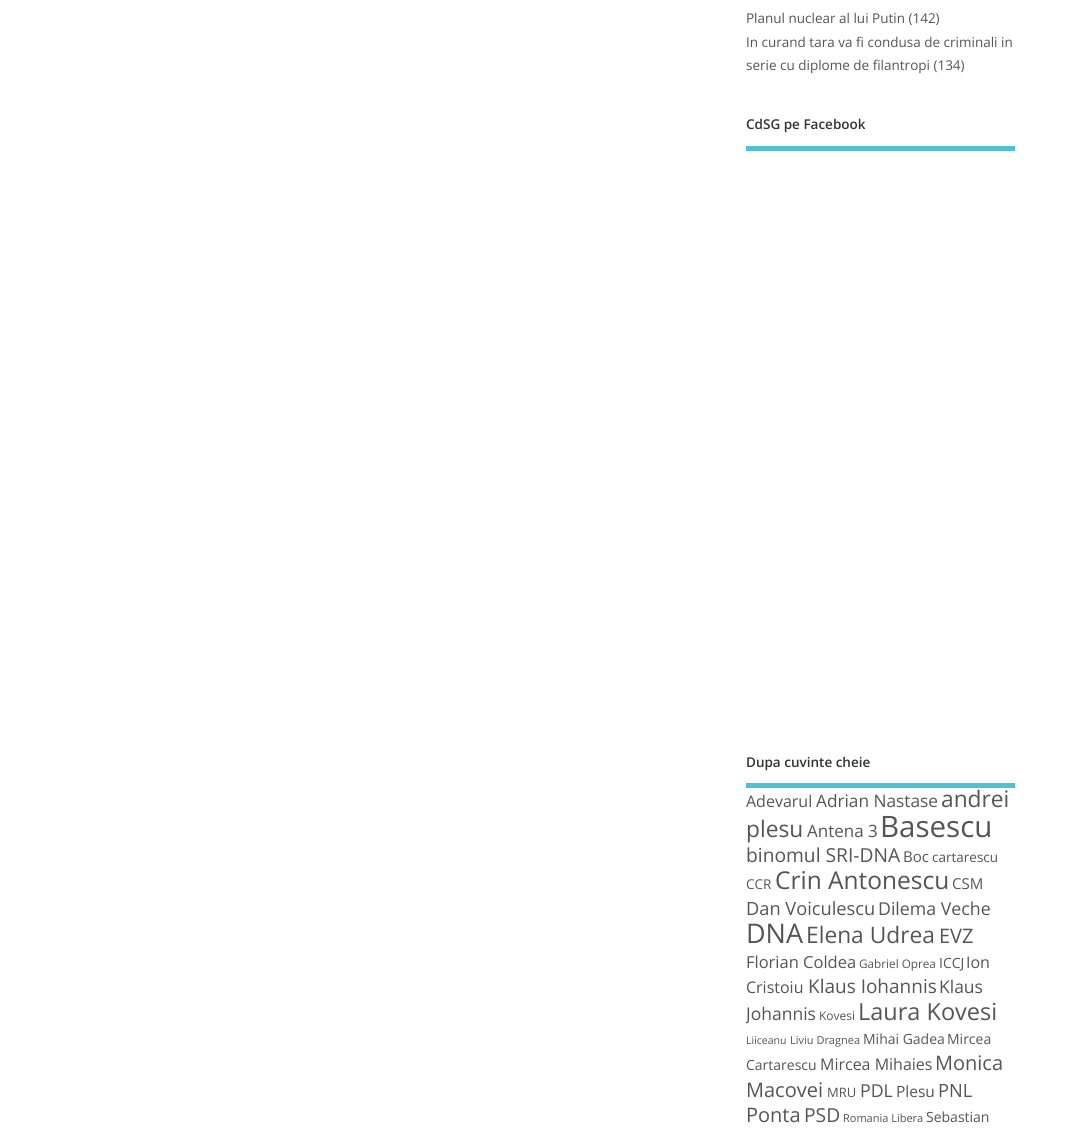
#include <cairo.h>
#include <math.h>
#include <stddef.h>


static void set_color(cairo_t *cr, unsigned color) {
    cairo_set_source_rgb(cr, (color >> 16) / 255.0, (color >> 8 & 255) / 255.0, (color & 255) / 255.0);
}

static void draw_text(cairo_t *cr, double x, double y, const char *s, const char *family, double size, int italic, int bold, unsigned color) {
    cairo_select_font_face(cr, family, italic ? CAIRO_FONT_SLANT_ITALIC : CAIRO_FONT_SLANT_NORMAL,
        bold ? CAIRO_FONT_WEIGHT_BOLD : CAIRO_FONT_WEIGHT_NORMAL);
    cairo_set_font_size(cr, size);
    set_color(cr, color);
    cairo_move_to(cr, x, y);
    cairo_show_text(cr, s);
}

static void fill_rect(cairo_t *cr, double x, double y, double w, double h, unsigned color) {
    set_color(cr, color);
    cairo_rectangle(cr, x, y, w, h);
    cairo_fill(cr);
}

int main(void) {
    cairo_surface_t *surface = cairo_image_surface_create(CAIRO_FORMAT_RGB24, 1070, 1140);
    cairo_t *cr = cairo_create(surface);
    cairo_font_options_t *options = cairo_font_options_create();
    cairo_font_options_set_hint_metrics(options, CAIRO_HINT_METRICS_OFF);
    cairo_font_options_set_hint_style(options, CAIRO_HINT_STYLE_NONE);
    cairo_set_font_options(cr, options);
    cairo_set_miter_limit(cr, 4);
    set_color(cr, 0xFFFFFF);
    cairo_paint(cr);
    draw_text(cr, 746, 23, "Planul nuclear al lui Putin (142)", "Open Sans", 13.5, 0, 0, 0x555555);
    draw_text(cr, 746, 47, "In curand tara va fi condusa de criminali in", "Open Sans", 13.5, 0, 0, 0x555555);
    draw_text(cr, 746, 70, "serie cu diplome de filantropi (134)", "Open Sans", 13.5, 0, 0, 0x555555);
    fill_rect(cr, 746, 146, 269, 5, 0x52C0D4);
    draw_text(cr, 746, 129, "CdSG pe Facebook", "Open Sans SemiBold", 13.5, 0, 0, 0x333333);
    fill_rect(cr, 746, 783, 269, 5, 0x52C0D4);
    draw_text(cr, 746, 767, "Dupa cuvinte cheie", "Open Sans SemiBold", 13.5, 0, 0, 0x333333);
    draw_text(cr, 746, 807, "Adevarul", "Open Sans", 16, 0, 0, 0x555555);
    draw_text(cr, 816, 807, "Adrian Nastase", "Open Sans", 17.25, 0, 0, 0x555555);
    draw_text(cr, 941, 807, "andrei", "Open Sans", 22.75, 0, 0, 0x555555);
    draw_text(cr, 746, 837, "plesu", "Open Sans", 22.75, 0, 0, 0x555555);
    draw_text(cr, 807, 837, "Antena 3", "Open Sans", 17, 0, 0, 0x555555);
    draw_text(cr, 880, 837, "Basescu", "Open Sans", 29.5, 0, 0, 0x555555);
    draw_text(cr, 746, 862, "binomul SRI-DNA", "Open Sans", 19.25, 0, 0, 0x555555);
    draw_text(cr, 903, 862, "Boc", "Open Sans", 15, 0, 0, 0x555555);
    draw_text(cr, 932, 862, "cartarescu", "Open Sans", 13.5, 0, 0, 0x555555);
    draw_text(cr, 746, 889, "CCR", "Open Sans", 13.5, 0, 0, 0x555555);
    draw_text(cr, 775, 889, "Crin Antonescu", "Open Sans", 24.5, 0, 0, 0x555555);
    draw_text(cr, 952, 889, "CSM", "Open Sans", 15, 0, 0, 0x555555);
    draw_text(cr, 746, 915, "Dan Voiculescu", "Open Sans", 18.25, 0, 0, 0x555555);
    draw_text(cr, 878, 915, "Dilema Veche", "Open Sans", 17.75, 0, 0, 0x555555);
    draw_text(cr, 746, 943, "DNA", "Open Sans", 27, 0, 0, 0x555555);
    draw_text(cr, 806, 943, "Elena Udrea", "Open Sans", 22.75, 0, 0, 0x555555);
    draw_text(cr, 939, 943, "EVZ", "Open Sans", 20, 0, 0, 0x555555);
    draw_text(cr, 746, 968, "Florian Coldea", "Open Sans", 16.5, 0, 0, 0x555555);
    draw_text(cr, 859, 968, "Gabriel Oprea", "Open Sans", 11.75, 0, 0, 0x555555);
    draw_text(cr, 939, 968, "ICCJ", "Open Sans", 14, 0, 0, 0x555555);
    draw_text(cr, 966, 968, "Ion", "Open Sans", 16, 0, 0, 0x555555);
    draw_text(cr, 746, 993, "Cristoiu", "Open Sans", 16, 0, 0, 0x555555);
    draw_text(cr, 808, 993, "Klaus Iohannis", "Open Sans", 19, 0, 0, 0x555555);
    draw_text(cr, 939, 993, "Klaus", "Open Sans", 17.5, 0, 0, 0x555555);
    cairo_save(cr);
    cairo_rectangle(cr, 746, 0, 269, 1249);
    cairo_clip(cr);
    draw_text(cr, 746, 1020, "Johannis", "Open Sans", 17.5, 0, 0, 0x555555);
    cairo_restore(cr);
    draw_text(cr, 819, 1020, "Kovesi", "Open Sans", 12, 0, 0, 0x555555);
    draw_text(cr, 858, 1020, "Laura Kovesi", "Open Sans", 23.5, 0, 0, 0x555555);
    draw_text(cr, 746, 1044, "Liiceanu", "Open Sans", 10.5, 0, 0, 0x555555);
    draw_text(cr, 790, 1044, "Liviu Dragnea", "Open Sans", 11, 0, 0, 0x555555);
    draw_text(cr, 863, 1044, "Mihai Gadea", "Open Sans", 14, 0, 0, 0x555555);
    draw_text(cr, 947, 1044, "Mircea", "Open Sans", 14, 0, 0, 0x555555);
    draw_text(cr, 746, 1070, "Cartarescu", "Open Sans", 14, 0, 0, 0x555555);
    draw_text(cr, 820, 1070, "Mircea Mihaies", "Open Sans", 16, 0, 0, 0x555555);
    draw_text(cr, 935, 1070, "Monica", "Open Sans", 20, 0, 0, 0x555555);
    draw_text(cr, 746, 1097, "Macovei", "Open Sans", 20, 0, 0, 0x555555);
    draw_text(cr, 827, 1097, "MRU", "Open Sans", 13, 0, 0, 0x555555);
    draw_text(cr, 860, 1097, "PDL", "Open Sans", 17.75, 0, 0, 0x555555);
    draw_text(cr, 896, 1097, "Plesu", "Open Sans", 15.5, 0, 0, 0x555555);
    draw_text(cr, 938, 1097, "PNL", "Open Sans", 18.25, 0, 0, 0x555555);
    draw_text(cr, 746, 1122, "Ponta", "Open Sans", 20, 0, 0, 0x555555);
    draw_text(cr, 804, 1122, "PSD", "Open Sans", 19.25, 0, 0, 0x555555);
    draw_text(cr, 843, 1122, "Romania Libera", "Open Sans", 11, 0, 0, 0x555555);
    draw_text(cr, 926, 1122, "Sebastian", "Open Sans", 14, 0, 0, 0x555555);
    cairo_surface_write_to_png(surface, "output.png");
    cairo_font_options_destroy(options);
    cairo_destroy(cr);
    cairo_surface_destroy(surface);
    return 0;
}
